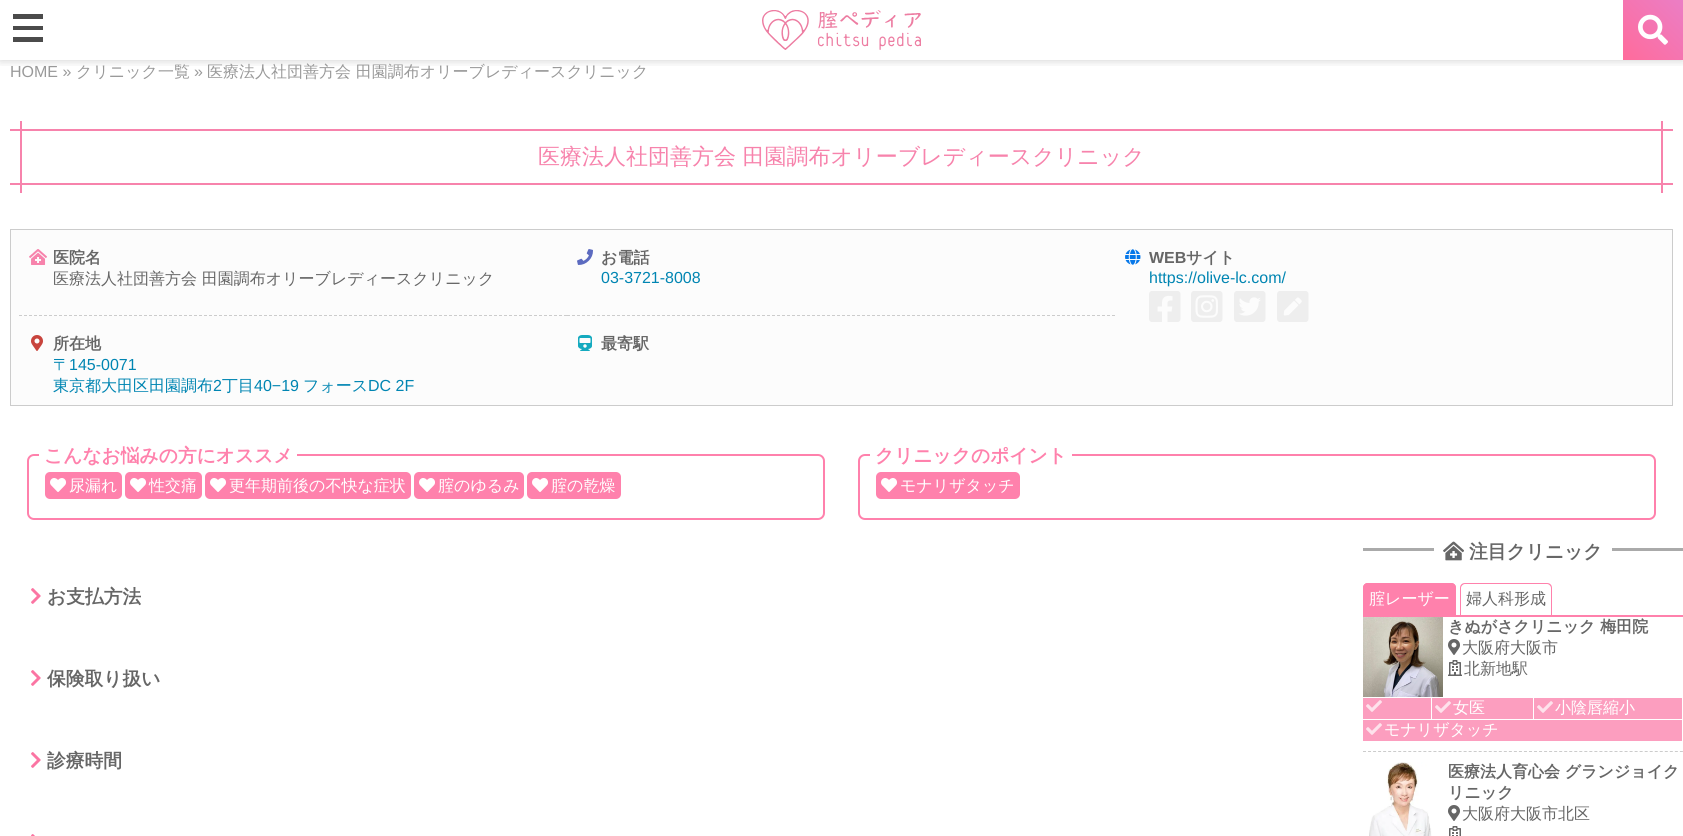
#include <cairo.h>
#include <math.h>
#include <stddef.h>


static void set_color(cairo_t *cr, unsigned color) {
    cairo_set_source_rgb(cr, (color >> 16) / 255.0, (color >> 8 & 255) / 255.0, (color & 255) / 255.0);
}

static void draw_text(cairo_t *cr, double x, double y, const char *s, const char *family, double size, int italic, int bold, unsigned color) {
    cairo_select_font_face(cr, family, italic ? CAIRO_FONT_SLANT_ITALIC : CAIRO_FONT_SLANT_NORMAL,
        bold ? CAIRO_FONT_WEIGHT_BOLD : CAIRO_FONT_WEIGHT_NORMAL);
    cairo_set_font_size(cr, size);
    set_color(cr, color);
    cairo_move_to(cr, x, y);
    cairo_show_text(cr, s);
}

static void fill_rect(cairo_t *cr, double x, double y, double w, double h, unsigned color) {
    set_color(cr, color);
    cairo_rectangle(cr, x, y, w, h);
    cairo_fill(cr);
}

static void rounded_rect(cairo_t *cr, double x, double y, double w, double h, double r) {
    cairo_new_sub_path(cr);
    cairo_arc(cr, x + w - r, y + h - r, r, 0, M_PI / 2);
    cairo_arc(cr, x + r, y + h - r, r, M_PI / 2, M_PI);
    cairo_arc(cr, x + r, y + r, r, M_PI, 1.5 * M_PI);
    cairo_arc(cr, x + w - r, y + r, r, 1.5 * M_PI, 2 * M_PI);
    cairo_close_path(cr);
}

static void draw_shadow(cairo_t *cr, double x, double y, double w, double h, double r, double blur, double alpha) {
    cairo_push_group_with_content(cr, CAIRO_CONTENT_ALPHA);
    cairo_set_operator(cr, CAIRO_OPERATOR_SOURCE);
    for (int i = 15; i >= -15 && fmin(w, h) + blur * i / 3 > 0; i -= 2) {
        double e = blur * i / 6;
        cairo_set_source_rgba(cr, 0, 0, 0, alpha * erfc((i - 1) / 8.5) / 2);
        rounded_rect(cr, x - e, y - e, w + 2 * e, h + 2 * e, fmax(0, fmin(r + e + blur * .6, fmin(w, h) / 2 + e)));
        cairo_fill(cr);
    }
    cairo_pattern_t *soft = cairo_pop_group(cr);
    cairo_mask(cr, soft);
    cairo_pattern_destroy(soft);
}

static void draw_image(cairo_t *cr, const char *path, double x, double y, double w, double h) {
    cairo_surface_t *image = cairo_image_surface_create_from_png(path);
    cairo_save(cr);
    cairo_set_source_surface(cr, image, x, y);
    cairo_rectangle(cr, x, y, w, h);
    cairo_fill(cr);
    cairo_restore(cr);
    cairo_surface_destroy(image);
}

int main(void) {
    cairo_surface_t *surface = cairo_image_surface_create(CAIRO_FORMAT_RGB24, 1683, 836);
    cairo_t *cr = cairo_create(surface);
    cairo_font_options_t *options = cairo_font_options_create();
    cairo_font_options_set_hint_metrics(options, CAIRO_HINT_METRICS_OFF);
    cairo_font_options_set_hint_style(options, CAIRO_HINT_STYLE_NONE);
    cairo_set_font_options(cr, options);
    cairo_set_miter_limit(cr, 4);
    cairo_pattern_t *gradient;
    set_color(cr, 0xFFFFFF);
    cairo_paint(cr);
    cairo_save(cr);
    cairo_rectangle(cr, 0, 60, 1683, 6);
    cairo_clip(cr);
    set_color(cr, 0x000000);
    draw_shadow(cr, 0, 0, 1683, 60, 0, 5, 0.2);
    cairo_restore(cr);
    fill_rect(cr, 13, 14, 30, 5, 0x4B4B4B);
    fill_rect(cr, 13, 26, 30, 4, 0x4B4B4B);
    fill_rect(cr, 13, 37, 30, 5, 0x4B4B4B);
    gradient = cairo_pattern_create_linear(1623, 60, 1683, 0);
    cairo_pattern_add_color_stop_rgba(gradient, 0, 1, 0.42, 0.608, 1);
    cairo_pattern_add_color_stop_rgba(gradient, 1, 0.922, 0.494, 0.773, 1);
    cairo_set_source(cr, gradient);
    cairo_pattern_destroy(gradient);
    cairo_rectangle(cr, 1623, 0, 60, 60);
    cairo_fill(cr);
    draw_image(cr, "assets/img1.png", 1638, 14, 30, 31);
    draw_image(cr, "assets/img2.png", 762, 10, 159, 40);
    draw_text(cr, 10, 77, "HOME »", "Liberation Sans", 16, 0, 0, 0x999999);
    draw_text(cr, 76, 77, "クリニック一覧", "WenQuanYi Zen Hei Medium", 16, 0, 0, 0x999999);
    draw_text(cr, 194, 77, "»", "Liberation Sans", 16, 0, 0, 0x999999);
    draw_text(cr, 207, 77, "医療法人社団善方会 田園調布オリーブレディースクリニック", "WenQuanYi Zen Hei Medium", 16, 0, 0, 0x999999);
    fill_rect(cr, 10, 129, 1663, 2, 0xF783AC);
    fill_rect(cr, 10, 183, 1663, 2, 0xF783AC);
    fill_rect(cr, 20, 121, 2, 72, 0xF783AC);
    draw_text(cr, 538, 164, "医療法人社団善方会 田園調布オリーブレディースクリニック", "WenQuanYi Zen Hei Medium", 22, 0, 0, 0xF783AC);
    fill_rect(cr, 1661, 121, 2, 72, 0xF783AC);
    set_color(cr, 0xFCFCFC);
    cairo_rectangle(cr, 10.5, 229.5, 1662, 176);
    cairo_fill_preserve(cr);
    set_color(cr, 0xCCCCCC);
    cairo_set_line_width(cr, 1);
    cairo_stroke(cr);
    cairo_new_path(cr);
    cairo_move_to(cr, 19, 315.5);
    cairo_line_to(cr, 567, 315.5);
    cairo_set_dash(cr, (double[]){3, 2}, 2, 0);
    cairo_stroke(cr);
    draw_image(cr, "assets/img3.png", 29, 249, 18, 16);
    draw_text(cr, 53, 263, "医院名", "WenQuanYi Zen Hei", 16, 0, 1, 0x666666);
    draw_text(cr, 53, 284, "医療法人社団善方会 田園調布オリーブレディースクリニック", "WenQuanYi Zen Hei Medium", 16, 0, 0, 0x666666);
    cairo_new_path(cr);
    cairo_move_to(cr, 567, 315.5);
    cairo_line_to(cr, 1115, 315.5);
    set_color(cr, 0xCCCCCC);
    cairo_stroke(cr);
    draw_image(cr, "assets/img4.png", 577, 249, 16, 16);
    draw_text(cr, 601, 263, "お電話", "WenQuanYi Zen Hei", 16, 0, 1, 0x666666);
    draw_text(cr, 601, 283, "03-3721-8008", "Liberation Sans", 16, 0, 0, 0x0085B2);
    draw_image(cr, "assets/img5.png", 1125, 249, 16, 16);
    draw_text(cr, 1149, 263, "WEB", "Liberation Sans", 16, 0, 1, 0x666666);
    draw_text(cr, 1186, 263, "サイト", "WenQuanYi Zen Hei", 16, 0, 1, 0x666666);
    draw_text(cr, 1149, 283, "https://olive-lc.com/", "Liberation Sans", 16, 0, 0, 0x0085B2);
    draw_image(cr, "assets/img6.png", 1149, 291, 32, 31);
    draw_image(cr, "assets/img7.png", 1191, 291, 32, 31);
    draw_image(cr, "assets/img8.png", 1234, 291, 32, 31);
    draw_image(cr, "assets/img9.png", 1277, 291, 32, 31);
    draw_image(cr, "assets/img10.png", 31, 335, 12, 16);
    draw_text(cr, 53, 349, "所在地", "WenQuanYi Zen Hei", 16, 0, 1, 0x666666);
    draw_text(cr, 53, 370, "〒", "WenQuanYi Zen Hei Medium", 16, 0, 0, 0x0085B2);
    draw_text(cr, 69, 370, "145-0071", "Liberation Sans", 16, 0, 0, 0x0085B2);
    draw_text(cr, 53, 391, "東京都大田区田園調布", "WenQuanYi Zen Hei Medium", 16, 0, 0, 0x0085B2);
    draw_text(cr, 213, 391, "2", "Liberation Sans", 16, 0, 0, 0x0085B2);
    draw_text(cr, 222, 391, "丁目", "WenQuanYi Zen Hei Medium", 16, 0, 0, 0x0085B2);
    draw_text(cr, 254, 391, "40−19", "Liberation Sans", 16, 0, 0, 0x0085B2);
    draw_text(cr, 303, 391, "フォース", "WenQuanYi Zen Hei Medium", 16, 0, 0, 0x0085B2);
    draw_text(cr, 368, 391, "DC 2F", "Liberation Sans", 16, 0, 0, 0x0085B2);
    draw_image(cr, "assets/img11.png", 578, 335, 14, 16);
    draw_text(cr, 601, 349, "最寄駅", "WenQuanYi Zen Hei", 16, 0, 1, 0x666666);
    rounded_rect(cr, 28, 455, 796, 64, 6);
    set_color(cr, 0xFF81AC);
    cairo_set_line_width(cr, 2);
    cairo_set_dash(cr, NULL, 0, 0);
    cairo_stroke(cr);
    fill_rect(cr, 39, 454, 258, 2, 0xFFFFFF);
    draw_text(cr, 44, 462, "こんなお悩みの方にオススメ", "WenQuanYi Zen Hei", 18.75, 0, 1, 0xFF81AC);
    rounded_rect(cr, 45, 472, 77, 27, 5);
    cairo_fill(cr);
    draw_image(cr, "assets/img12.png", 50, 478, 16, 14);
    draw_text(cr, 69, 491, "尿漏れ", "WenQuanYi Zen Hei Medium", 16, 0, 0, 0xFFFFFF);
    set_color(cr, 0xFF81AC);
    rounded_rect(cr, 125, 472, 77, 27, 5);
    cairo_fill(cr);
    draw_image(cr, "assets/img12.png", 130, 478, 16, 14);
    draw_text(cr, 149, 491, "性交痛", "WenQuanYi Zen Hei Medium", 16, 0, 0, 0xFFFFFF);
    set_color(cr, 0xFF81AC);
    rounded_rect(cr, 205, 472, 206, 27, 5);
    cairo_fill(cr);
    draw_image(cr, "assets/img12.png", 210, 478, 16, 14);
    draw_text(cr, 229, 491, "更年期前後の不快な症状", "WenQuanYi Zen Hei Medium", 16, 0, 0, 0xFFFFFF);
    set_color(cr, 0xFF81AC);
    rounded_rect(cr, 414, 472, 110, 27, 5);
    cairo_fill(cr);
    draw_image(cr, "assets/img12.png", 419, 478, 16, 14);
    draw_text(cr, 438, 491, "腟のゆるみ", "WenQuanYi Zen Hei Medium", 16, 0, 0, 0xFFFFFF);
    set_color(cr, 0xFF81AC);
    rounded_rect(cr, 527, 472, 94, 27, 5);
    cairo_fill(cr);
    draw_image(cr, "assets/img12.png", 532, 478, 16, 14);
    draw_text(cr, 551, 491, "腟の乾燥", "WenQuanYi Zen Hei Medium", 16, 0, 0, 0xFFFFFF);
    rounded_rect(cr, 859, 455, 796, 64, 6);
    set_color(cr, 0xFF81AC);
    cairo_stroke(cr);
    fill_rect(cr, 870, 454, 202, 2, 0xFFFFFF);
    draw_text(cr, 875, 462, "クリニックのポイント", "WenQuanYi Zen Hei", 18.75, 0, 1, 0xFF81AC);
    rounded_rect(cr, 876, 472, 144, 27, 5);
    cairo_fill(cr);
    draw_image(cr, "assets/img12.png", 881, 478, 16, 14);
    draw_text(cr, 900, 491, "モナリザタッチ", "WenQuanYi Zen Hei Medium", 16, 0, 0, 0xFFFFFF);
    draw_image(cr, "assets/img13.png", 31, 588, 10, 16);
    draw_text(cr, 47, 603, "お支払方法", "WenQuanYi Zen Hei", 18.75, 0, 1, 0x666666);
    draw_image(cr, "assets/img13.png", 31, 670, 10, 16);
    draw_text(cr, 47, 685, "保険取り扱い", "WenQuanYi Zen Hei", 18.75, 0, 1, 0x666666);
    draw_image(cr, "assets/img13.png", 31, 752, 10, 16);
    draw_text(cr, 47, 767, "診療時間", "WenQuanYi Zen Hei", 18.75, 0, 1, 0x666666);
    draw_image(cr, "assets/img14.png", 31, 834, 4, 2);
    fill_rect(cr, 1363, 548, 320, 3, 0xAAAAAA);
    fill_rect(cr, 1434, 548, 178, 3, 0xFFFFFF);
    draw_image(cr, "assets/img15.png", 1443, 541, 21, 20);
    draw_text(cr, 1469, 558, "注目クリニック", "WenQuanYi Zen Hei", 18.75, 0, 1, 0x666666);
    fill_rect(cr, 1363, 615, 320, 2, 0xFF81AC);
    cairo_new_path(cr);
    cairo_move_to(cr, 1368, 583);
    cairo_line_to(cr, 1451, 583);
    cairo_curve_to(cr, 1454, 583, 1456, 585, 1456, 588);
    cairo_line_to(cr, 1456, 615);
    cairo_line_to(cr, 1363, 615);
    cairo_line_to(cr, 1363, 588);
    cairo_curve_to(cr, 1363, 585, 1365, 583, 1368, 583);
    cairo_close_path(cr);
    cairo_fill(cr);
    cairo_set_fill_rule(cr, CAIRO_FILL_RULE_EVEN_ODD);
    cairo_new_path(cr);
    cairo_move_to(cr, 1368, 583);
    cairo_line_to(cr, 1451, 583);
    cairo_curve_to(cr, 1454, 583, 1456, 585, 1456, 588);
    cairo_line_to(cr, 1456, 615);
    cairo_line_to(cr, 1363, 615);
    cairo_line_to(cr, 1363, 588);
    cairo_curve_to(cr, 1363, 585, 1365, 583, 1368, 583);
    cairo_close_path(cr);
    cairo_move_to(cr, 1368, 584);
    cairo_line_to(cr, 1451, 584);
    cairo_curve_to(cr, 1453, 584, 1455, 586, 1455, 588);
    cairo_line_to(cr, 1455, 615);
    cairo_line_to(cr, 1364, 615);
    cairo_line_to(cr, 1364, 588);
    cairo_curve_to(cr, 1364, 586, 1366, 584, 1368, 584);
    cairo_close_path(cr);
    cairo_fill(cr);
    draw_text(cr, 1369, 604, "腟レーザー", "WenQuanYi Zen Hei Medium", 16, 0, 0, 0xFFFFFF);
    set_color(cr, 0xFF81AC);
    cairo_new_path(cr);
    cairo_move_to(cr, 1465, 583);
    cairo_line_to(cr, 1547, 583);
    cairo_curve_to(cr, 1550, 583, 1552, 585, 1552, 588);
    cairo_line_to(cr, 1552, 615);
    cairo_line_to(cr, 1460, 615);
    cairo_line_to(cr, 1460, 588);
    cairo_curve_to(cr, 1460, 585, 1462, 583, 1465, 583);
    cairo_close_path(cr);
    cairo_move_to(cr, 1465, 584);
    cairo_line_to(cr, 1547, 584);
    cairo_curve_to(cr, 1549, 584, 1551, 586, 1551, 588);
    cairo_line_to(cr, 1551, 615);
    cairo_line_to(cr, 1461, 615);
    cairo_line_to(cr, 1461, 588);
    cairo_curve_to(cr, 1461, 586, 1463, 584, 1465, 584);
    cairo_close_path(cr);
    cairo_fill(cr);
    draw_text(cr, 1466, 604, "婦人科形成", "WenQuanYi Zen Hei Medium", 16, 0, 0, 0x666666);
    cairo_new_path(cr);
    cairo_move_to(cr, 1363, 751.5);
    cairo_line_to(cr, 1683, 751.5);
    set_color(cr, 0xCCCCCC);
    cairo_set_line_width(cr, 1);
    cairo_set_dash(cr, (double[]){3, 2.03}, 2, 0);
    cairo_stroke(cr);
    draw_image(cr, "assets/img16.png", 1363, 617, 80, 80);
    draw_text(cr, 1448, 632, "きぬがさクリニック 梅田院", "WenQuanYi Zen Hei", 16, 0, 1, 0x666666);
    draw_image(cr, "assets/img17.png", 1448, 639, 12, 16);
    draw_text(cr, 1462, 653, "大阪府大阪市", "WenQuanYi Zen Hei Medium", 16, 0, 0, 0x666666);
    draw_image(cr, "assets/img18.png", 1448, 660, 14, 16);
    draw_text(cr, 1464, 674, "北新地駅", "WenQuanYi Zen Hei Medium", 16, 0, 0, 0x666666);
    fill_rect(cr, 1363, 698, 68, 21, 0xFC9EBF);
    draw_image(cr, "assets/img19.png", 1366, 700, 16, 12);
    fill_rect(cr, 1432, 698, 101, 21, 0xFC9EBF);
    draw_image(cr, "assets/img19.png", 1435, 701, 16, 12);
    draw_text(cr, 1453, 713, "女医", "WenQuanYi Zen Hei Medium", 16, 0, 0, 0xFFFFFF);
    fill_rect(cr, 1534, 698, 148, 21, 0xFC9EBF);
    draw_image(cr, "assets/img19.png", 1537, 701, 16, 12);
    draw_text(cr, 1555, 713, "小陰唇縮小", "WenQuanYi Zen Hei Medium", 16, 0, 0, 0xFFFFFF);
    fill_rect(cr, 1363, 720, 319, 21, 0xFC9EBF);
    draw_image(cr, "assets/img19.png", 1366, 723, 16, 12);
    draw_text(cr, 1384, 735, "モナリザタッチ", "WenQuanYi Zen Hei Medium", 16, 0, 0, 0xFFFFFF);
    draw_image(cr, "assets/img20.png", 1369, 762, 63, 74);
    draw_text(cr, 1448, 777, "医療法人育心会 グランジョイク", "WenQuanYi Zen Hei", 16, 0, 1, 0x666666);
    draw_text(cr, 1448, 798, "リニック", "WenQuanYi Zen Hei", 16, 0, 1, 0x666666);
    draw_image(cr, "assets/img17.png", 1448, 805, 12, 16);
    draw_text(cr, 1462, 819, "大阪府大阪市北区", "WenQuanYi Zen Hei Medium", 16, 0, 0, 0x666666);
    draw_image(cr, "assets/img21.png", 1449, 826, 12, 10);
    cairo_surface_write_to_png(surface, "output.png");
    cairo_font_options_destroy(options);
    cairo_destroy(cr);
    cairo_surface_destroy(surface);
    return 0;
}
